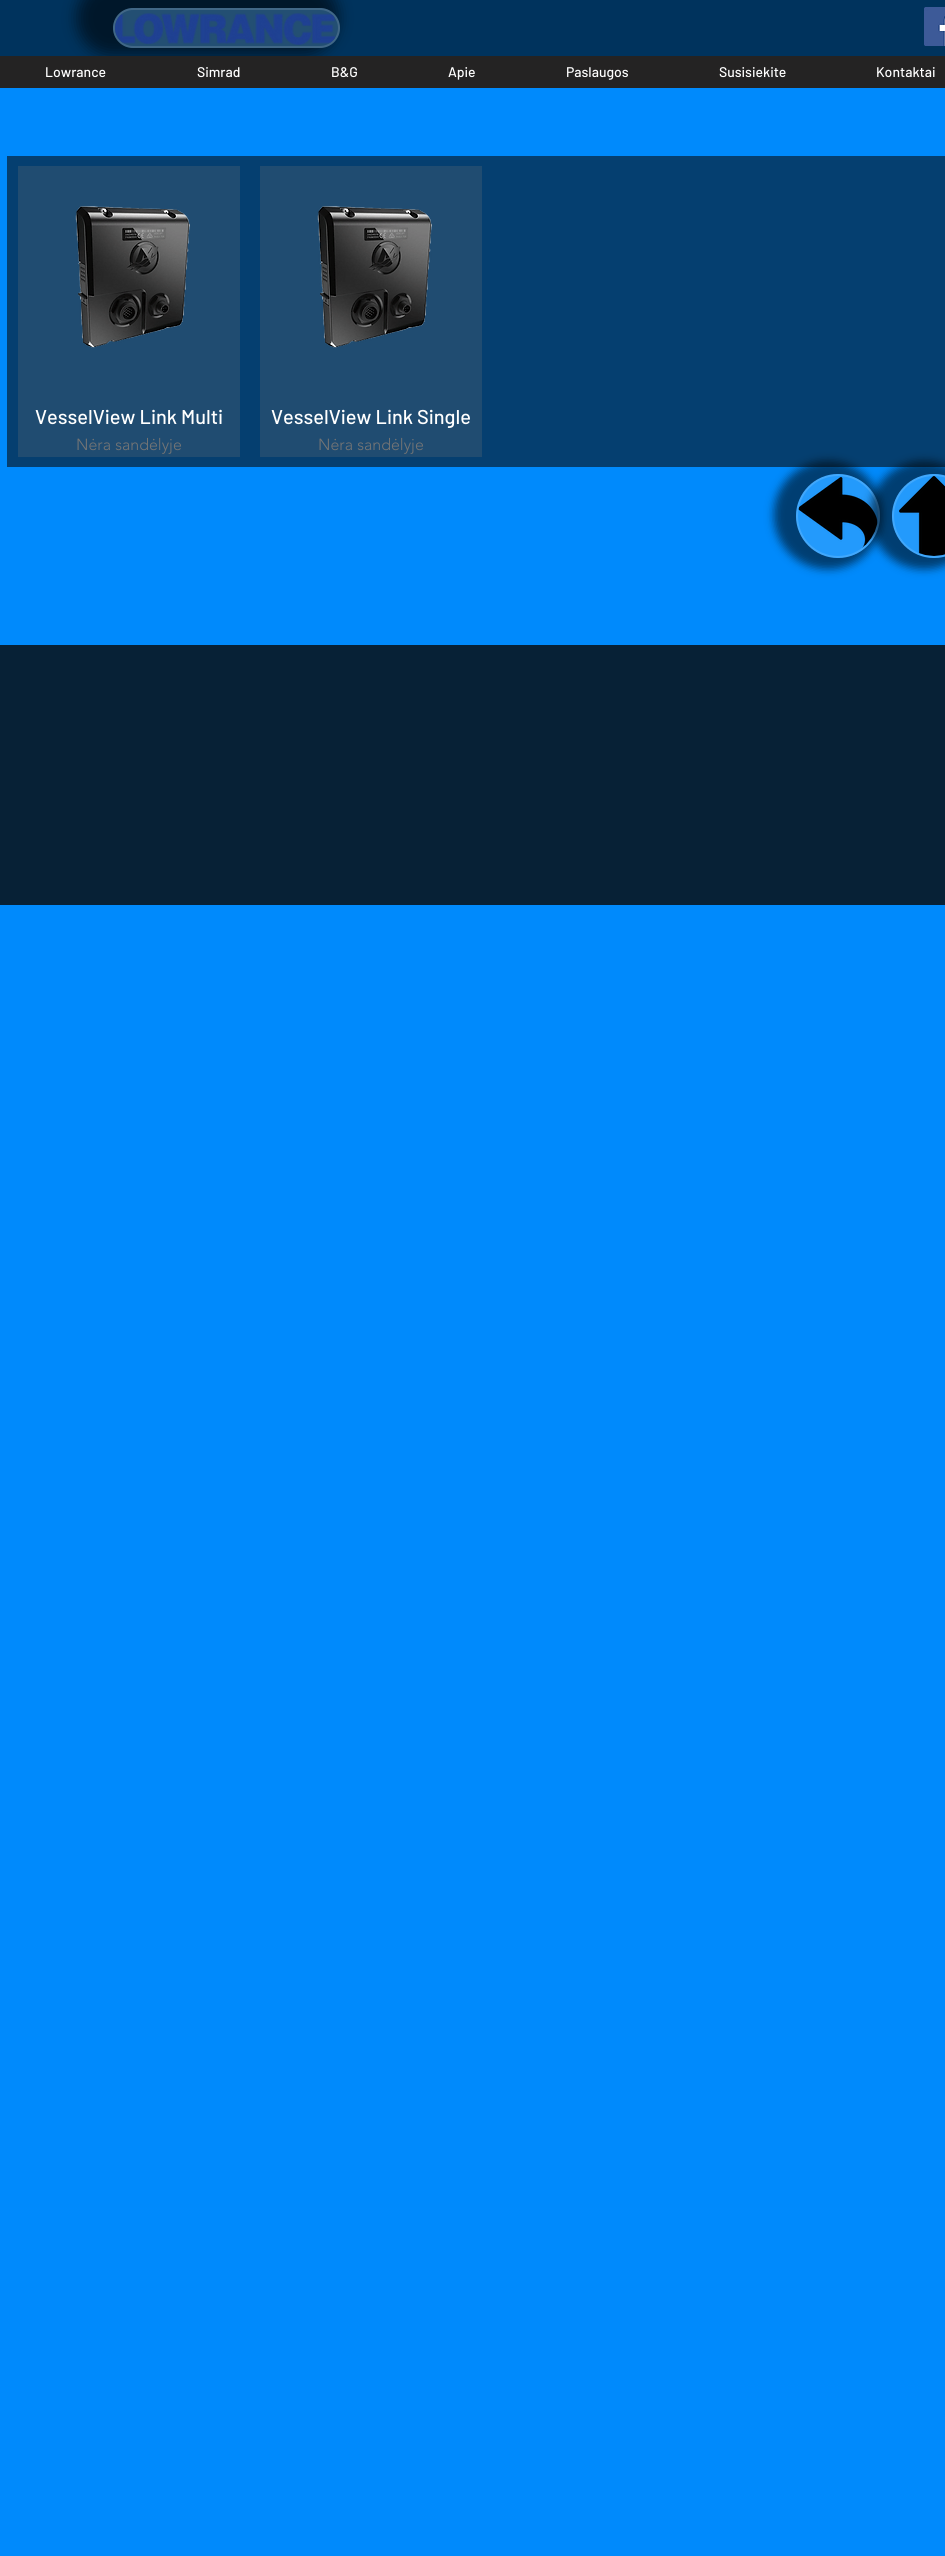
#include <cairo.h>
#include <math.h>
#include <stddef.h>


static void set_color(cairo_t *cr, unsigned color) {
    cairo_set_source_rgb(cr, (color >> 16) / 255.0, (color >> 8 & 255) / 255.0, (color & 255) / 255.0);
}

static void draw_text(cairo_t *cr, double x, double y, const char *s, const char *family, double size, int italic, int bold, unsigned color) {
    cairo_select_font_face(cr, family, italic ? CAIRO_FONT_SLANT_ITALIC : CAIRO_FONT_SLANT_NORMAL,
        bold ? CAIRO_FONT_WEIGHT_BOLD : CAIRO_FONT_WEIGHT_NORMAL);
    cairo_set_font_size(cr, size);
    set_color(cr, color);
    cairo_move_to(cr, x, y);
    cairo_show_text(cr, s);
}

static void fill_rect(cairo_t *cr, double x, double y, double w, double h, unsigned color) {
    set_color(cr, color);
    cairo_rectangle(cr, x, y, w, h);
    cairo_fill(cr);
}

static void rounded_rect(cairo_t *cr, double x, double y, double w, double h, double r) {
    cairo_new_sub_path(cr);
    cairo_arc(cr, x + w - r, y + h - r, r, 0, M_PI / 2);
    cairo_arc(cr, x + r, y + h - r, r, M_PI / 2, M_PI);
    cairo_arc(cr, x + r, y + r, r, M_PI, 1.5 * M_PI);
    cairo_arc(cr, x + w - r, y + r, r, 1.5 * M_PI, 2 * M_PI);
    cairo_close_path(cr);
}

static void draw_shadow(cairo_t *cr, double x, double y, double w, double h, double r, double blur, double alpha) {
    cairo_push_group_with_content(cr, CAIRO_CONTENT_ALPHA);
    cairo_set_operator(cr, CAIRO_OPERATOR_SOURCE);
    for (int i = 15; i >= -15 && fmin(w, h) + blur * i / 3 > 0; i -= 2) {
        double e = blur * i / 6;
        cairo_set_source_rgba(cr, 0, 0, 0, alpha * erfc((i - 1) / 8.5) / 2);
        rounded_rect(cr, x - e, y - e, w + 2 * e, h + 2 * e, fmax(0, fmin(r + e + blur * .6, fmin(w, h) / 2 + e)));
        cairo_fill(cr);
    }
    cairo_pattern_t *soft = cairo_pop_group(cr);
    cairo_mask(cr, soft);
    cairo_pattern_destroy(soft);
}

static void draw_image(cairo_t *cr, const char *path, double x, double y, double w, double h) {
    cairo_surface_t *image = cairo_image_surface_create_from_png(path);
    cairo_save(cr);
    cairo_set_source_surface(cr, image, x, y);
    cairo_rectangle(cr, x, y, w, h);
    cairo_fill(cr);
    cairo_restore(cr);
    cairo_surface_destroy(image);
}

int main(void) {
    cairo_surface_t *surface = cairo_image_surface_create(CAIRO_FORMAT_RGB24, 945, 2556);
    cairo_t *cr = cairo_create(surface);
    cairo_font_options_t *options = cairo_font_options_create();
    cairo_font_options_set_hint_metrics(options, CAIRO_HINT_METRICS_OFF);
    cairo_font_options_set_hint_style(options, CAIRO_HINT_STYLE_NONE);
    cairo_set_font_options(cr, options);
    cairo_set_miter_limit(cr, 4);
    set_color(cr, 0x008AFC);
    cairo_paint(cr);
    fill_rect(cr, 0, 0, 945, 56, 0x00335D);
    cairo_save(cr);
    cairo_set_fill_rule(cr, CAIRO_FILL_RULE_EVEN_ODD);
    cairo_new_path(cr);
    cairo_move_to(cr, 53, 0);
    cairo_line_to(cr, 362, 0);
    cairo_line_to(cr, 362, 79);
    cairo_line_to(cr, 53, 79);
    cairo_close_path(cr);
    cairo_move_to(cr, 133, 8);
    cairo_line_to(cr, 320, 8);
    cairo_curve_to(cr, 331, 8, 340, 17, 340, 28);
    cairo_curve_to(cr, 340, 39, 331, 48, 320, 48);
    cairo_line_to(cr, 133, 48);
    cairo_curve_to(cr, 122, 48, 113, 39, 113, 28);
    cairo_curve_to(cr, 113, 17, 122, 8, 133, 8);
    cairo_close_path(cr);
    cairo_clip(cr);
    set_color(cr, 0x000000);
    draw_shadow(cr, 77, -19, 261, 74, 37, 7.5, 0.55);
    cairo_restore(cr);
    cairo_set_source_rgba(cr, 1, 1, 1, 0.14);
    rounded_rect(cr, 113, 8, 227, 40, 20);
    cairo_fill(cr);
    rounded_rect(cr, 114, 9, 225, 38, 19);
    cairo_stroke(cr);
    draw_image(cr, "assets/img1.png", 115, 13, 221, 32);
    draw_image(cr, "assets/img2.png", 924, 7, 21, 39);
    fill_rect(cr, 0, 56, 945, 32, 0x242323);
    draw_text(cr, 45, 77, "Lowrance", "Barlow Medium", 14, 0, 0, 0xFFFFFF);
    draw_text(cr, 197, 77, "Simrad", "Barlow Medium", 14, 0, 0, 0xFFFFFF);
    draw_text(cr, 331, 77, "B&G", "Barlow Medium", 14, 0, 0, 0xFFFFFF);
    draw_text(cr, 448, 77, "Apie", "Barlow Medium", 14, 0, 0, 0xFFFFFF);
    draw_text(cr, 566, 77, "Paslaugos", "Barlow Medium", 14, 0, 0, 0xFFFFFF);
    draw_text(cr, 719, 77, "Susisiekite", "Barlow Medium", 14, 0, 0, 0xFFFFFF);
    draw_text(cr, 876, 77, "Kontaktai", "Barlow Medium", 14, 0, 0, 0xFFFFFF);
    fill_rect(cr, 7, 156, 938, 311, 0x053F70);
    fill_rect(cr, 18, 166, 222, 291, 0x204C71);
    draw_image(cr, "assets/img3.png", 75, 206, 115, 142);
    draw_text(cr, 35, 424, "VesselView Link Multi", "Barlow Medium", 20, 0, 0, 0xFFFFFF);
    draw_text(cr, 76, 450, "Nėra sandėlyje", "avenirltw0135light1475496 Light", 16, 0, 0, 0x757575);
    fill_rect(cr, 260, 166, 222, 291, 0x204C71);
    draw_image(cr, "assets/img3.png", 317, 206, 115, 142);
    draw_text(cr, 271, 424, "VesselView Link Single", "Barlow Medium", 20, 0, 0, 0xFFFFFF);
    draw_text(cr, 318, 450, "Nėra sandėlyje", "avenirltw0135light1475496 Light", 16, 0, 0, 0x757575);
    cairo_save(cr);
    cairo_set_fill_rule(cr, CAIRO_FILL_RULE_EVEN_ODD);
    cairo_new_path(cr);
    cairo_move_to(cr, 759, 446);
    cairo_line_to(cr, 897, 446);
    cairo_line_to(cr, 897, 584);
    cairo_line_to(cr, 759, 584);
    cairo_close_path(cr);
    cairo_move_to(cr, 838, 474);
    cairo_curve_to(cr, 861, 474, 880, 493, 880, 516);
    cairo_curve_to(cr, 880, 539, 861, 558, 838, 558);
    cairo_curve_to(cr, 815, 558, 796, 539, 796, 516);
    cairo_curve_to(cr, 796, 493, 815, 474, 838, 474);
    cairo_close_path(cr);
    cairo_clip(cr);
    set_color(cr, 0x000000);
    draw_shadow(cr, 774, 461, 108, 108, 54, 4.5, 0.55);
    cairo_restore(cr);
    cairo_set_source_rgba(cr, 1, 1, 1, 0.14);
    cairo_arc(cr, 838, 516, 42, 0, 2 * M_PI);
    cairo_fill(cr);
    cairo_arc(cr, 838, 516, 41, 0, 2 * M_PI);
    cairo_stroke(cr);
    draw_image(cr, "assets/img4.png", 798, 477, 80, 71);
    cairo_save(cr);
    cairo_set_fill_rule(cr, CAIRO_FILL_RULE_EVEN_ODD);
    cairo_new_path(cr);
    cairo_move_to(cr, 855, 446);
    cairo_line_to(cr, 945, 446);
    cairo_line_to(cr, 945, 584);
    cairo_line_to(cr, 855, 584);
    cairo_close_path(cr);
    cairo_move_to(cr, 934, 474);
    cairo_curve_to(cr, 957, 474, 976, 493, 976, 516);
    cairo_curve_to(cr, 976, 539, 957, 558, 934, 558);
    cairo_curve_to(cr, 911, 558, 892, 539, 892, 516);
    cairo_curve_to(cr, 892, 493, 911, 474, 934, 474);
    cairo_close_path(cr);
    cairo_clip(cr);
    set_color(cr, 0x000000);
    draw_shadow(cr, 870, 461, 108, 108, 54, 4.5, 0.55);
    cairo_restore(cr);
    cairo_arc(cr, 934, 516, 42, 0, 2 * M_PI);
    cairo_fill(cr);
    cairo_arc(cr, 934, 516, 41, 0, 2 * M_PI);
    cairo_stroke(cr);
    draw_image(cr, "assets/img5.png", 899, 476, 46, 80);
    fill_rect(cr, 0, 645, 945, 260, 0x072136);
    cairo_surface_write_to_png(surface, "output.png");
    cairo_font_options_destroy(options);
    cairo_destroy(cr);
    cairo_surface_destroy(surface);
    return 0;
}
